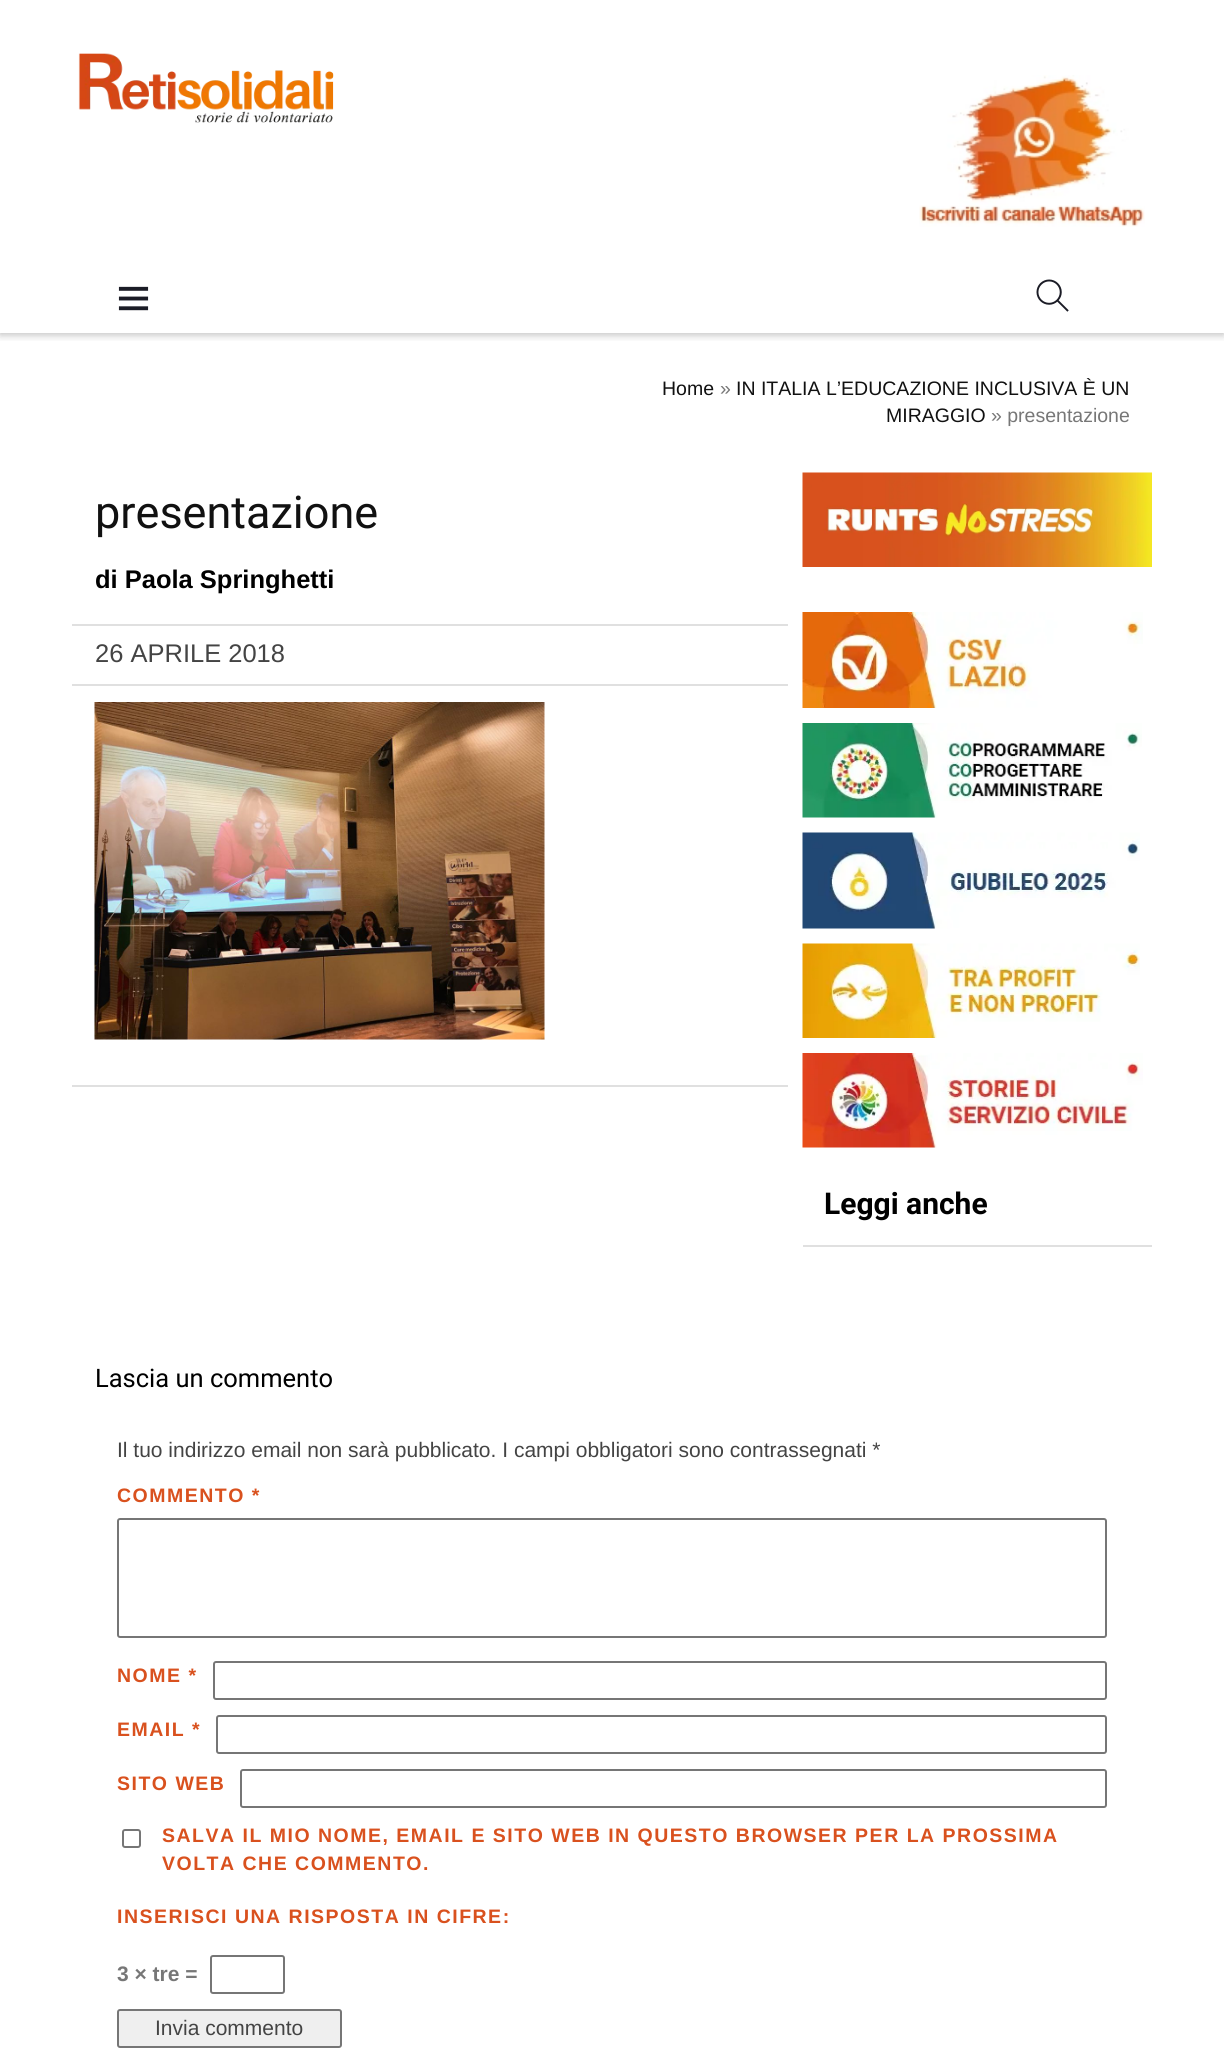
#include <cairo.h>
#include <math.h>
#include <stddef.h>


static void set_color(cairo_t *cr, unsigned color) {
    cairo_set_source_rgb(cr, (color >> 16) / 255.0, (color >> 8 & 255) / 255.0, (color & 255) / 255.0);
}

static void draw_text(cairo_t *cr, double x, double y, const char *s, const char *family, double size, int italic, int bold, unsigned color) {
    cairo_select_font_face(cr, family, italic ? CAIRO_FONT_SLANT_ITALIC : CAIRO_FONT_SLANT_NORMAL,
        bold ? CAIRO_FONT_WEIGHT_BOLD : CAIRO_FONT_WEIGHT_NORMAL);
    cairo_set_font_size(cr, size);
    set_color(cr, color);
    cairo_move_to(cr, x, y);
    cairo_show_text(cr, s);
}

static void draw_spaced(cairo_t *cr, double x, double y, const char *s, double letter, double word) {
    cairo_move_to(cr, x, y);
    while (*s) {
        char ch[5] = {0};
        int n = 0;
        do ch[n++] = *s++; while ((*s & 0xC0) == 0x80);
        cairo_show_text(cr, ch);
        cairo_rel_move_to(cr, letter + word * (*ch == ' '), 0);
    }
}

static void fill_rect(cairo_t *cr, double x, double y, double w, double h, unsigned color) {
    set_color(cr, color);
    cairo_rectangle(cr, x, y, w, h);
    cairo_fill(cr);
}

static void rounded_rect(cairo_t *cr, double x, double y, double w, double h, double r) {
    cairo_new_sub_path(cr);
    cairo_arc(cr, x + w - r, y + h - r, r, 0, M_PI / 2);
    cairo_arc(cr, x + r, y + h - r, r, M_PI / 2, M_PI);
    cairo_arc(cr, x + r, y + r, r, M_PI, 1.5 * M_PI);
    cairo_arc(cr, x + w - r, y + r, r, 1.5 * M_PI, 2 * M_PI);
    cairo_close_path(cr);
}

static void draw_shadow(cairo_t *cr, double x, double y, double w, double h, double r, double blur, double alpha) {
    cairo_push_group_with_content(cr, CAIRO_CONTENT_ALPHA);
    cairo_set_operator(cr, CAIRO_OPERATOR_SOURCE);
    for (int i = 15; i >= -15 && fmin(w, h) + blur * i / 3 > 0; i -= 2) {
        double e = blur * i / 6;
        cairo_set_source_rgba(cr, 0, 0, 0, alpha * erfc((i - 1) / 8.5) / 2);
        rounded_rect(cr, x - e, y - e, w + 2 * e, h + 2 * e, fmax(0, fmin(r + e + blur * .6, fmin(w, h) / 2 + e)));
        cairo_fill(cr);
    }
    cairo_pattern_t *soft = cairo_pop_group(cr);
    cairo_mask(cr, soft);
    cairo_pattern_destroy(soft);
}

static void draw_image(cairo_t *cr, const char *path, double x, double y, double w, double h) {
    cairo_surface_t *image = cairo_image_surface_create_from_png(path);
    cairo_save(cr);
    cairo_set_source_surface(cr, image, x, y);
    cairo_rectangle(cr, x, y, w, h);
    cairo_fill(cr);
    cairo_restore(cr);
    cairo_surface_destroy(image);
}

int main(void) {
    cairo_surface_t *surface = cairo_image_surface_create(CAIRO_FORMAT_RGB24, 1224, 2061);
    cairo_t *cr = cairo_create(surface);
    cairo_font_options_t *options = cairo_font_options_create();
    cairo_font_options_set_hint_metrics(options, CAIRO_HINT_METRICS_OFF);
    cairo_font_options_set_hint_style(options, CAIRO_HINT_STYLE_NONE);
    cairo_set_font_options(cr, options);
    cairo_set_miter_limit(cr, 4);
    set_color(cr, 0xFFFFFF);
    cairo_paint(cr);
    cairo_save(cr);
    cairo_rectangle(cr, 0, 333, 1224, 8);
    cairo_clip(cr);
    set_color(cr, 0x000000);
    draw_shadow(cr, 0, 2, 1224, 333, 0, 4, 0.25);
    cairo_restore(cr);
    draw_image(cr, "assets/img1.png", 78, 53, 256, 70);
    draw_image(cr, "assets/img2.png", 919, 75, 226, 152);
    draw_image(cr, "assets/img3.png", 118, 286, 31, 25);
    draw_image(cr, "assets/img4.png", 1036, 279, 33, 33);
    draw_text(cr, 662, 395, "Home", "Liberation Sans", 19.5, 0, 0, 0x111111);
    draw_text(cr, 720, 395, "»", "Liberation Sans", 19.5, 0, 0, 0x777777);
    draw_text(cr, 736, 395, "IN ITALIA L’EDUCAZIONE INCLUSIVA È UN", "Liberation Sans", 19.5, 0, 0, 0x111111);
    draw_text(cr, 886, 422, "MIRAGGIO", "Liberation Sans", 19.5, 0, 0, 0x111111);
    draw_text(cr, 991, 422, "» presentazione", "Liberation Sans", 19.5, 0, 0, 0x777777);
    draw_text(cr, 95, 528, "presentazione", "Roboto", 45, 0, 0, 0x111111);
    draw_text(cr, 95, 588, "di Paola Springhetti", "Liberation Sans", 25.5, 0, 1, 0x000000);
    fill_rect(cr, 72, 624, 716, 2, 0xE0E0E0);
    fill_rect(cr, 72, 684, 716, 2, 0xE0E0E0);
    draw_text(cr, 95, 662, "26 APRILE 2018", "Liberation Sans", 25.5, 0, 0, 0x444444);
    draw_image(cr, "assets/img5.png", 94, 702, 451, 338);
    fill_rect(cr, 72, 1085, 716, 2, 0xE0E0E0);
    draw_image(cr, "assets/img6.png", 802, 472, 350, 95);
    draw_image(cr, "assets/img7.png", 802, 612, 341, 96);
    draw_image(cr, "assets/img8.png", 802, 723, 340, 95);
    draw_image(cr, "assets/img9.png", 802, 832, 338, 97);
    draw_image(cr, "assets/img10.png", 802, 943, 338, 95);
    draw_image(cr, "assets/img11.png", 802, 1053, 341, 95);
    fill_rect(cr, 803, 1245, 349, 2, 0xE0E0E0);
    draw_text(cr, 824, 1214, "Leggi anche", "Roboto", 30, 0, 1, 0x000000);
    draw_text(cr, 95, 1387, "Lascia un commento", "Roboto", 25.5, 0, 0, 0x000000);
    draw_text(cr, 117, 1457, "Il tuo indirizzo email non sarà pubblicato. I campi obbligatori sono contrassegnati *", "Liberation Sans", 21, 0, 0, 0x444444);
    cairo_select_font_face(cr, "Liberation Sans", CAIRO_FONT_SLANT_NORMAL, CAIRO_FONT_WEIGHT_BOLD);
    cairo_set_font_size(cr, 19.5);
    set_color(cr, 0xD9511E);
    draw_spaced(cr, 117, 1502, "COMMENTO *", 1.5, 0);
    rounded_rect(cr, 118, 1519, 988, 118, 2);
    set_color(cr, 0x767676);
    cairo_stroke(cr);
    set_color(cr, 0xD9511E);
    draw_spaced(cr, 117, 1682, "NOME *", 1.5, 0);
    rounded_rect(cr, 214, 1662, 892, 37, 2);
    set_color(cr, 0x767676);
    cairo_stroke(cr);
    set_color(cr, 0xD9511E);
    draw_spaced(cr, 117, 1736, "EMAIL *", 1.5, 0);
    rounded_rect(cr, 217, 1716, 889, 37, 2);
    set_color(cr, 0x767676);
    cairo_stroke(cr);
    set_color(cr, 0xD9511E);
    draw_spaced(cr, 117, 1790, "SITO WEB", 1.5, 0);
    rounded_rect(cr, 241, 1770, 865, 37, 2);
    set_color(cr, 0x767676);
    cairo_stroke(cr);
    rounded_rect(cr, 123, 1830, 17, 17, 2);
    cairo_stroke(cr);
    set_color(cr, 0xD9511E);
    draw_spaced(cr, 162, 1842, "SALVA IL MIO NOME, EMAIL E SITO WEB IN QUESTO BROWSER PER LA PROSSIMA", 1.5, 0);
    draw_spaced(cr, 162, 1870, "VOLTA CHE COMMENTO.", 1.5, 0);
    draw_spaced(cr, 117, 1923, "INSERISCI UNA RISPOSTA IN CIFRE:", 1.5, 0);
    draw_text(cr, 117, 1981, "3 × tre =", "Liberation Sans", 21, 0, 1, 0x777777);
    rounded_rect(cr, 211, 1956, 73, 37, 2);
    set_color(cr, 0x767676);
    cairo_stroke(cr);
    set_color(cr, 0xEFEFEF);
    rounded_rect(cr, 118, 2010, 223, 37, 2);
    cairo_fill_preserve(cr);
    set_color(cr, 0x767676);
    cairo_stroke(cr);
    draw_text(cr, 155, 2035, "Invia commento", "Liberation Sans", 21, 0, 0, 0x444444);
    cairo_surface_write_to_png(surface, "output.png");
    cairo_font_options_destroy(options);
    cairo_destroy(cr);
    cairo_surface_destroy(surface);
    return 0;
}
